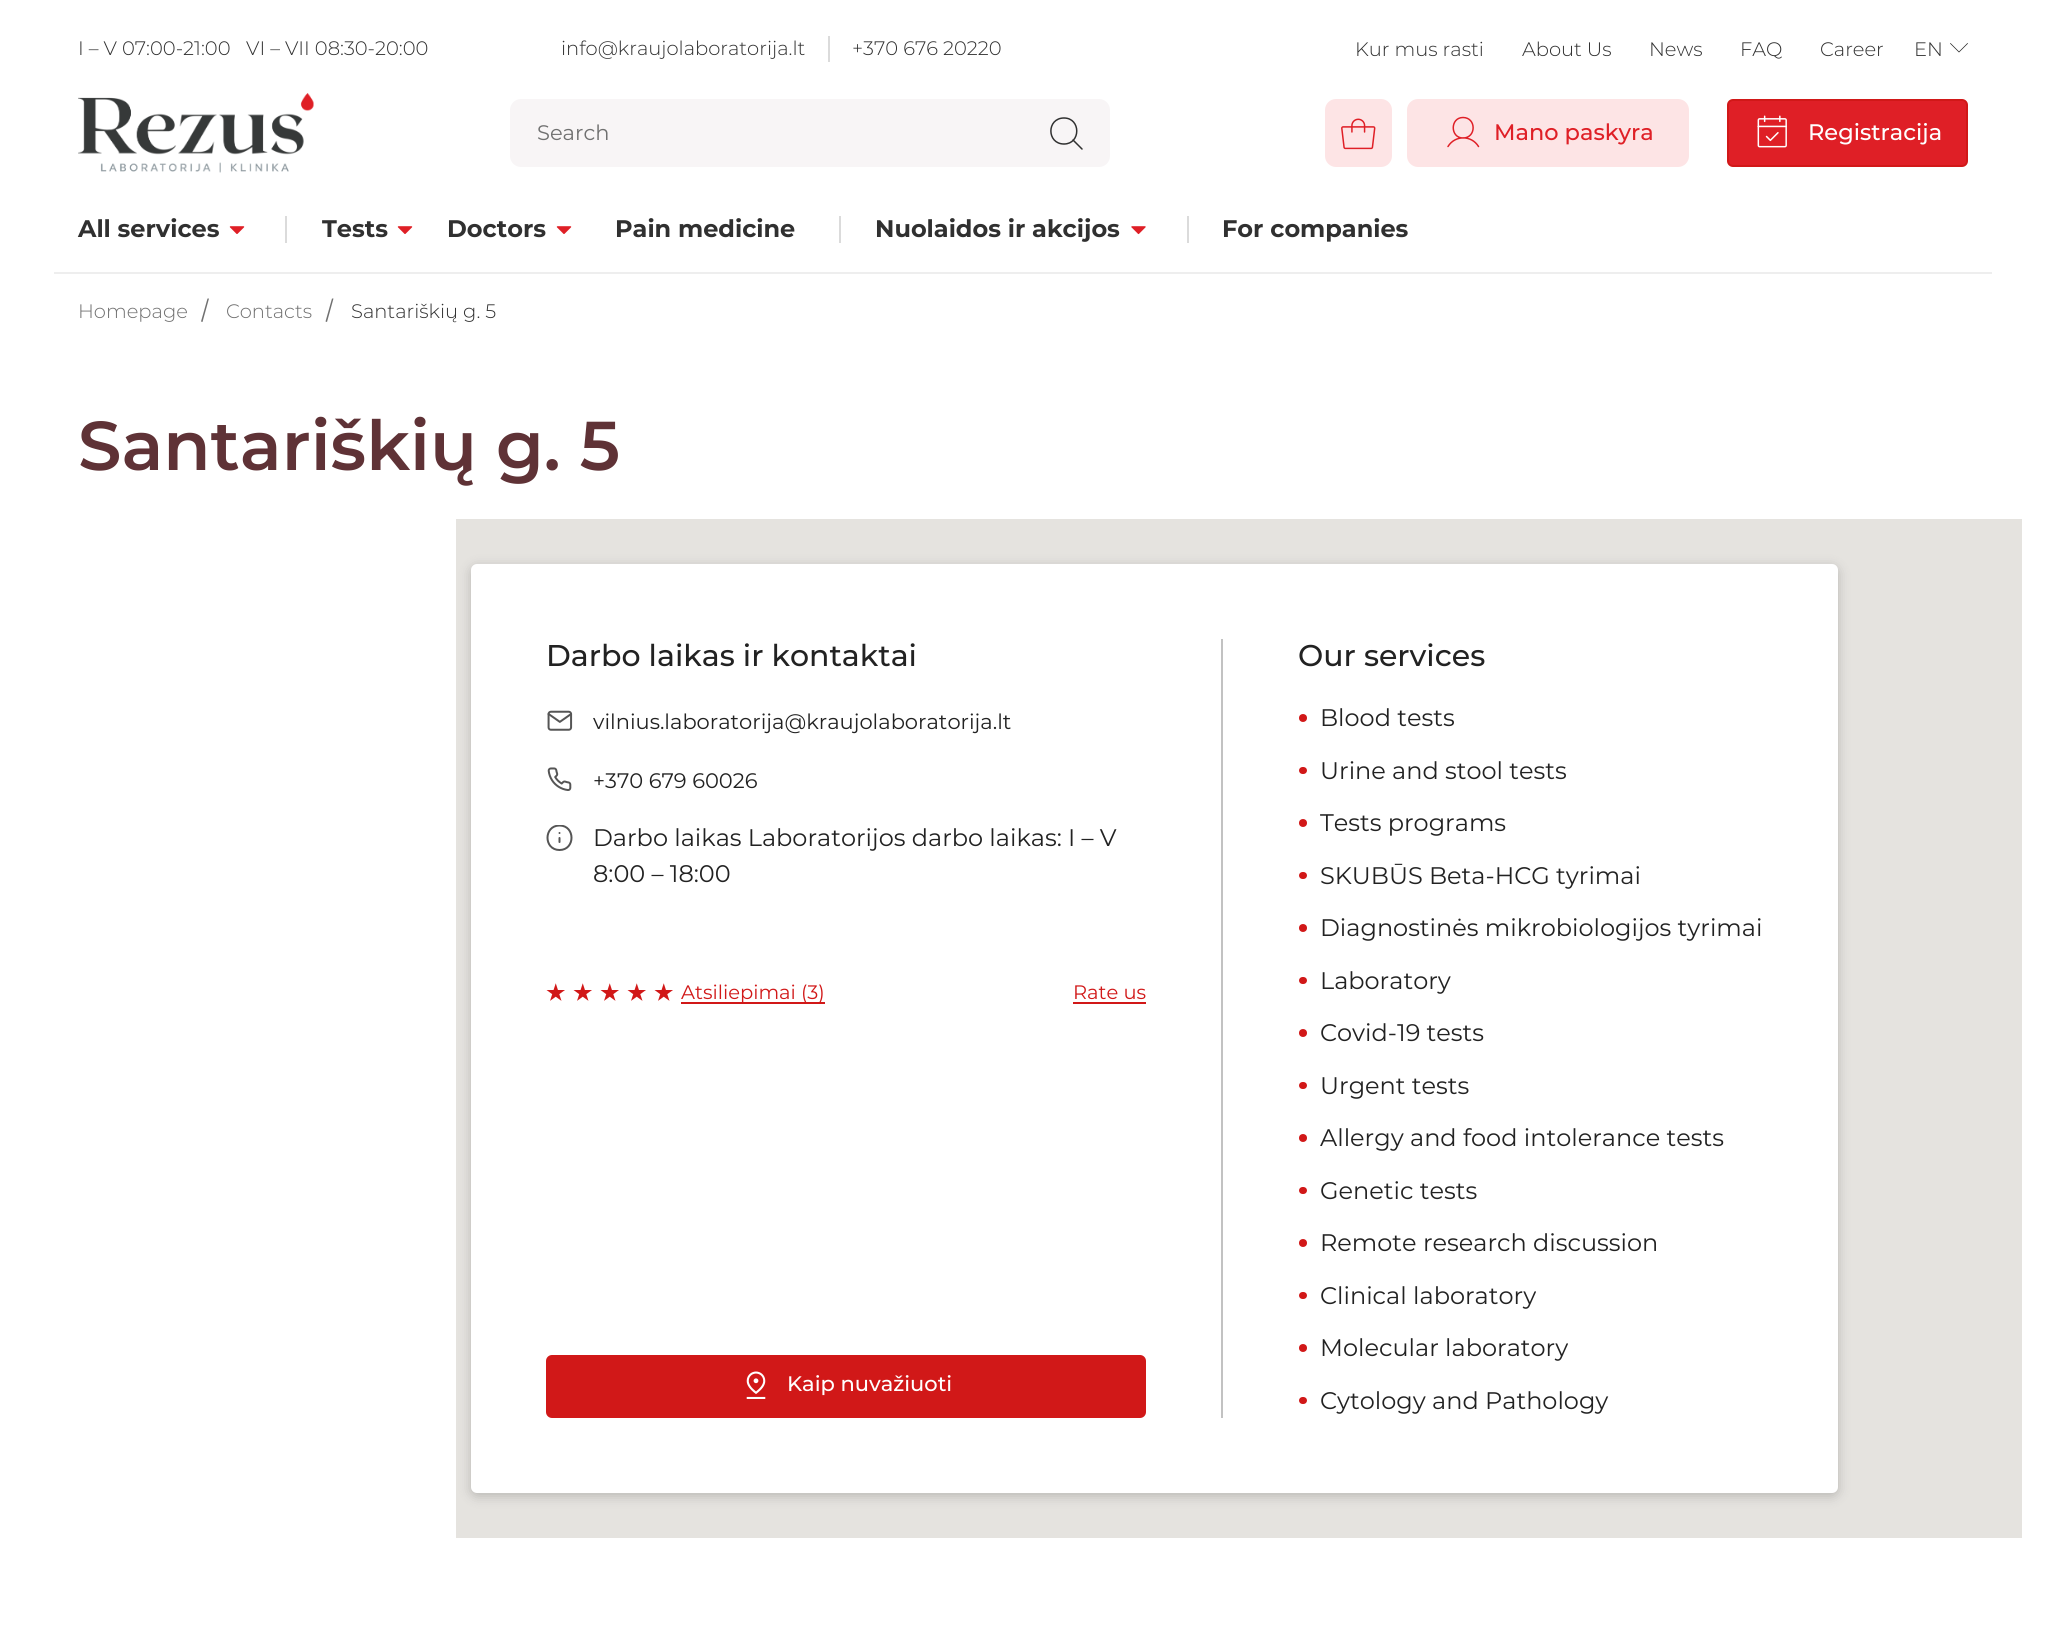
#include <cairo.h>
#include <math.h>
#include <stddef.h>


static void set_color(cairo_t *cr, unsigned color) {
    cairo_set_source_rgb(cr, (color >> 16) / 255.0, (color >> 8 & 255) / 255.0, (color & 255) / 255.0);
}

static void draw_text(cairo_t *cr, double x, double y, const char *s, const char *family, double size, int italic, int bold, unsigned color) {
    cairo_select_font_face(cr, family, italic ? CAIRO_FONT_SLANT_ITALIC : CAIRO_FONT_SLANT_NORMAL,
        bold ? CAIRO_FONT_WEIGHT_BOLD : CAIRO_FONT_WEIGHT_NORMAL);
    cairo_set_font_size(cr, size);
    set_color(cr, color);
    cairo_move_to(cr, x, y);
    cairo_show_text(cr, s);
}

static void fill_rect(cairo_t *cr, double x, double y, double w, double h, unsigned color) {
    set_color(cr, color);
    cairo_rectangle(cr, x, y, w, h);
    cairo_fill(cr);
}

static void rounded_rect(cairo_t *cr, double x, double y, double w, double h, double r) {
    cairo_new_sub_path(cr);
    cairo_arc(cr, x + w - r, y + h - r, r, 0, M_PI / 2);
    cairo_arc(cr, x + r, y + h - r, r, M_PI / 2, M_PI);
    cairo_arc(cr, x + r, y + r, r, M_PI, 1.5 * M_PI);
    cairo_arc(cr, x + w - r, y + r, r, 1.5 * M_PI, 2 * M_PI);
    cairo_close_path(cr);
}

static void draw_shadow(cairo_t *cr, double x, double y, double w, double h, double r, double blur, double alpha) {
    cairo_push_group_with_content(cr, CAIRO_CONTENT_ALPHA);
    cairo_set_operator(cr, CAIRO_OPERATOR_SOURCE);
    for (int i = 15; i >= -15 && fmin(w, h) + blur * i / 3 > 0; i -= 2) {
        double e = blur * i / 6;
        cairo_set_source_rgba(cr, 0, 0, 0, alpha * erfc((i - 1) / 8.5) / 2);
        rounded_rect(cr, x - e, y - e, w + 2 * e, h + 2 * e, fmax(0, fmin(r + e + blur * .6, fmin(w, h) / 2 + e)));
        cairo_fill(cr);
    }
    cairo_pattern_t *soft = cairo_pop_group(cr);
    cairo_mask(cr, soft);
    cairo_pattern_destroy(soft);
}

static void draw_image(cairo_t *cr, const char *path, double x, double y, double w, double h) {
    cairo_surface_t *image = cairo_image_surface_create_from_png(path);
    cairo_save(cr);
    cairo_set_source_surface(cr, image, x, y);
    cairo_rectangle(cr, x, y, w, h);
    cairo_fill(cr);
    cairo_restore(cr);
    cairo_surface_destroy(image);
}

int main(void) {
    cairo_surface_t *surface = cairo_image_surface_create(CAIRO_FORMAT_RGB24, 2046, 1628);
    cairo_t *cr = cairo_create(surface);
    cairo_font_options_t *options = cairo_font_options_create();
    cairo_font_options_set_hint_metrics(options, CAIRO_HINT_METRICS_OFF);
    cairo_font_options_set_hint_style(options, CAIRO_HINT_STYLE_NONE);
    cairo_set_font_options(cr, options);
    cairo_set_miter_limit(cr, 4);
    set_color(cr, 0xFFFFFF);
    cairo_paint(cr);
    draw_text(cr, 78, 55, "I – V 07:00-21:00", "Montserrat Light", 19.5, 0, 0, 0x303030);
    draw_text(cr, 246, 55, "VI – VII 08:30-20:00", "Montserrat Light", 19.5, 0, 0, 0x303030);
    draw_text(cr, 561, 55, "info@kraujolaboratorija.lt", "Montserrat Light", 19.5, 0, 0, 0x303030);
    fill_rect(cr, 828, 36, 2, 26, 0xDBDBDB);
    draw_text(cr, 852, 55, "+370 676 20220", "Montserrat Light", 19.5, 0, 0, 0x303030);
    draw_text(cr, 1355, 56, "Kur mus rasti", "Montserrat Light", 19.5, 0, 0, 0x303030);
    draw_text(cr, 1522, 56, "About Us", "Montserrat Light", 19.5, 0, 0, 0x303030);
    draw_text(cr, 1649, 56, "News", "Montserrat Light", 19.5, 0, 0, 0x303030);
    draw_text(cr, 1740, 56, "FAQ", "Montserrat Light", 19.5, 0, 0, 0x303030);
    draw_text(cr, 1820, 56, "Career", "Montserrat Light", 19.5, 0, 0, 0x303030);
    draw_text(cr, 1914, 56, "EN", "Montserrat Light", 19.5, 0, 0, 0x303030);
    set_color(cr, 0x222222);
    cairo_new_path(cr);
    cairo_move_to(cr, 1968, 43.5);
    cairo_line_to(cr, 1959, 52.5);
    cairo_line_to(cr, 1950, 43.5);
    cairo_line_to(cr, 1950.5, 43);
    cairo_line_to(cr, 1959, 51.5);
    cairo_line_to(cr, 1967.5, 43);
    cairo_close_path(cr);
    cairo_fill(cr);
    draw_image(cr, "assets/img1.png", 78, 93, 236, 80);
    set_color(cr, 0xF8F5F6);
    rounded_rect(cr, 510, 99, 600, 68, 11);
    cairo_fill(cr);
    draw_text(cr, 537, 140, "Search", "Montserrat", 21, 0, 0, 0x707070);
    cairo_new_path(cr);
    cairo_move_to(cr, 1064, 144);
    cairo_curve_to(cr, 1081, 144, 1081, 118, 1064, 118);
    cairo_curve_to(cr, 1046.5, 118, 1046.5, 144, 1064, 144);
    cairo_close_path(cr);
    cairo_move_to(cr, 1073, 140);
    cairo_line_to(cr, 1082, 149);
    set_color(cr, 0x303030);
    cairo_set_line_width(cr, 1.5);
    cairo_set_line_cap(cr, CAIRO_LINE_CAP_ROUND);
    cairo_set_line_join(cr, CAIRO_LINE_JOIN_ROUND);
    cairo_stroke(cr);
    set_color(cr, 0xFDE4E5);
    rounded_rect(cr, 1325, 99, 67, 68, 11);
    cairo_fill(cr);
    draw_image(cr, "assets/img2.png", 1341, 118, 35, 32);
    rounded_rect(cr, 1407, 99, 282, 68, 11);
    cairo_fill(cr);
    cairo_new_path(cr);
    cairo_move_to(cr, 1463, 138);
    cairo_curve_to(cr, 1476.5, 138, 1476.5, 117.5, 1463, 117.5);
    cairo_curve_to(cr, 1450, 117.5, 1450, 138, 1463, 138);
    cairo_close_path(cr);
    cairo_move_to(cr, 1448, 146.5);
    cairo_curve_to(cr, 1455, 135, 1471.5, 135, 1478.5, 146.5);
    set_color(cr, 0xDF1F26);
    cairo_stroke(cr);
    draw_text(cr, 1494, 140, "Mano paskyra", "Montserrat Medium", 22.5, 0, 0, 0xDF1F26);
    rounded_rect(cr, 1728, 100, 239, 66, 5);
    cairo_fill_preserve(cr);
    set_color(cr, 0xD11818);
    cairo_set_line_width(cr, 2);
    cairo_set_line_cap(cr, CAIRO_LINE_CAP_BUTT);
    cairo_set_line_join(cr, CAIRO_LINE_JOIN_MITER);
    cairo_stroke(cr);
    draw_image(cr, "assets/img3.png", 1757, 115, 30, 33);
    draw_text(cr, 1808, 140, "Registracija", "Montserrat Medium", 22.5, 0, 0, 0xFFFFFF);
    fill_rect(cr, 54, 272, 1938, 2, 0xEEEEEE);
    draw_text(cr, 78, 237, "All services", "Montserrat", 24, 0, 1, 0x303030);
    draw_image(cr, "assets/img4.png", 229, 226, 16, 8);
    fill_rect(cr, 285, 216, 2, 27, 0xDBDBDB);
    draw_text(cr, 322, 237, "Tests", "Montserrat", 24, 0, 1, 0x303030);
    draw_image(cr, "assets/img4.png", 397, 226, 16, 8);
    draw_text(cr, 447, 237, "Doctors", "Montserrat", 24, 0, 1, 0x303030);
    draw_image(cr, "assets/img4.png", 556, 226, 16, 8);
    draw_text(cr, 615, 237, "Pain medicine", "Montserrat", 24, 0, 1, 0x303030);
    fill_rect(cr, 839, 216, 2, 27, 0xDBDBDB);
    draw_text(cr, 875, 237, "Nuolaidos ir akcijos", "Montserrat", 24, 0, 1, 0x303030);
    draw_image(cr, "assets/img5.png", 1131, 226, 15, 9);
    fill_rect(cr, 1187, 216, 2, 27, 0xDBDBDB);
    draw_text(cr, 1222, 237, "For companies", "Montserrat", 24, 0, 1, 0x303030);
    draw_text(cr, 78, 318, "Homepage", "Montserrat Light", 19.5, 0, 0, 0x707070);
    cairo_new_path(cr);
    cairo_move_to(cr, 207.5, 298.5);
    cairo_line_to(cr, 209, 298.5);
    cairo_line_to(cr, 202.5, 322);
    cairo_line_to(cr, 201, 321.5);
    cairo_close_path(cr);
    cairo_fill(cr);
    draw_text(cr, 226, 318, "Contacts", "Montserrat Light", 19.5, 0, 0, 0x707070);
    cairo_new_path(cr);
    cairo_move_to(cr, 332, 298.5);
    cairo_line_to(cr, 333.5, 298.5);
    cairo_line_to(cr, 327, 322);
    cairo_line_to(cr, 325.5, 321.5);
    cairo_close_path(cr);
    cairo_fill(cr);
    draw_text(cr, 351, 318, "Santariškių g. 5", "Montserrat Light", 19.5, 0, 0, 0x303030);
    draw_text(cr, 78, 470, "Santariškių g. 5", "Montserrat SemiBold", 69, 0, 0, 0x5F3236);
    fill_rect(cr, 456, 519, 1566, 1019, 0xE5E3DF);
    set_color(cr, 0x000000);
    draw_shadow(cr, 471, 567, 1367, 929, 6, 6, 0.2);
    set_color(cr, 0xFFFFFF);
    rounded_rect(cr, 471, 564, 1367, 929, 6);
    cairo_fill(cr);
    draw_text(cr, 546, 666, "Darbo laikas ir kontaktai", "Montserrat Medium", 30, 0, 0, 0x222222);
    draw_image(cr, "assets/img6.png", 547, 710, 26, 21);
    draw_text(cr, 593, 729, "vilnius.laboratorija@kraujolaboratorija.lt", "Montserrat", 21, 0, 0, 0x222222);
    draw_image(cr, "assets/img7.png", 547, 767, 25, 24);
    draw_text(cr, 593, 788, "+370 679 60026", "Montserrat", 21, 0, 0, 0x222222);
    cairo_save(cr);
    cairo_rectangle(cr, 546, 825, 27, 26);
    cairo_clip(cr);
    cairo_new_path(cr);
    cairo_move_to(cr, 559.5, 850);
    cairo_curve_to(cr, 575.5, 850, 575.5, 825.5, 559.5, 825.5);
    cairo_curve_to(cr, 543.5, 825.5, 543.5, 850, 559.5, 850);
    cairo_close_path(cr);
    set_color(cr, 0x555555);
    cairo_set_line_cap(cr, CAIRO_LINE_CAP_ROUND);
    cairo_set_line_join(cr, CAIRO_LINE_JOIN_ROUND);
    cairo_stroke(cr);
    cairo_restore(cr);
    cairo_new_path(cr);
    cairo_move_to(cr, 559.5, 842);
    cairo_line_to(cr, 559.5, 838);
    cairo_move_to(cr, 559.5, 833);
    cairo_line_to(cr, 559.5, 833);
    set_color(cr, 0x555555);
    cairo_set_line_cap(cr, CAIRO_LINE_CAP_ROUND);
    cairo_set_line_join(cr, CAIRO_LINE_JOIN_ROUND);
    cairo_stroke(cr);
    draw_text(cr, 593, 846, "Darbo laikas Laboratorijos darbo laikas: I – V", "Montserrat", 24, 0, 0, 0x222222);
    draw_text(cr, 593, 882, "8:00 – 18:00", "Montserrat", 24, 0, 0, 0x222222);
    draw_image(cr, "assets/img8.png", 546, 983, 19, 18);
    draw_image(cr, "assets/img8.png", 573, 983, 19, 18);
    draw_image(cr, "assets/img8.png", 600, 983, 19, 18);
    draw_image(cr, "assets/img8.png", 627, 983, 19, 18);
    draw_image(cr, "assets/img8.png", 654, 983, 19, 18);
    fill_rect(cr, 681, 1002, 144, 2, 0xD11818);
    draw_text(cr, 681, 999, "Atsiliepimai (3)", "Montserrat", 19.5, 0, 0, 0xD11818);
    draw_text(cr, 1073, 999, "Rate us", "Montserrat", 19.5, 0, 0, 0xD11818);
    fill_rect(cr, 1073, 1002, 73, 2, 0xD11818);
    rounded_rect(cr, 547, 1356, 598, 61, 5);
    cairo_fill_preserve(cr);
    cairo_set_line_cap(cr, CAIRO_LINE_CAP_BUTT);
    cairo_set_line_join(cr, CAIRO_LINE_JOIN_MITER);
    cairo_stroke(cr);
    draw_image(cr, "assets/img9.png", 746, 1371, 20, 28);
    draw_text(cr, 787, 1391, "Kaip nuvažiuoti", "Montserrat Medium", 21, 0, 0, 0xFFFFFF);
    fill_rect(cr, 1221, 639, 2, 779, 0xC2C2C2);
    draw_text(cr, 1298, 666, "Our services", "Montserrat Medium", 30, 0, 0, 0x222222);
    set_color(cr, 0xD11818);
    cairo_new_path(cr);
    cairo_arc(cr, 1303, 718, 4, 0, 2 * M_PI);
    cairo_fill(cr);
    draw_text(cr, 1320, 726, "Blood tests", "Montserrat", 24, 0, 0, 0x222222);
    set_color(cr, 0xD11818);
    rounded_rect(cr, 1299, 767, 8, 7, 3.5);
    cairo_fill(cr);
    draw_text(cr, 1320, 779, "Urine and stool tests", "Montserrat", 24, 0, 0, 0x222222);
    set_color(cr, 0xD11818);
    cairo_new_path(cr);
    cairo_arc(cr, 1303, 823, 4, 0, 2 * M_PI);
    cairo_fill(cr);
    draw_text(cr, 1320, 831, "Tests programs", "Montserrat", 24, 0, 0, 0x222222);
    set_color(cr, 0xD11818);
    rounded_rect(cr, 1299, 872, 8, 7, 3.5);
    cairo_fill(cr);
    draw_text(cr, 1320, 884, "SKUBŪS Beta-HCG tyrimai", "Montserrat", 24, 0, 0, 0x222222);
    set_color(cr, 0xD11818);
    cairo_new_path(cr);
    cairo_arc(cr, 1303, 928, 4, 0, 2 * M_PI);
    cairo_fill(cr);
    draw_text(cr, 1320, 936, "Diagnostinės mikrobiologijos tyrimai", "Montserrat", 24, 0, 0, 0x222222);
    set_color(cr, 0xD11818);
    rounded_rect(cr, 1299, 977, 8, 7, 3.5);
    cairo_fill(cr);
    draw_text(cr, 1320, 989, "Laboratory", "Montserrat", 24, 0, 0, 0x222222);
    set_color(cr, 0xD11818);
    cairo_new_path(cr);
    cairo_arc(cr, 1303, 1033, 4, 0, 2 * M_PI);
    cairo_fill(cr);
    draw_text(cr, 1320, 1041, "Covid-19 tests", "Montserrat", 24, 0, 0, 0x222222);
    set_color(cr, 0xD11818);
    rounded_rect(cr, 1299, 1082, 8, 7, 3.5);
    cairo_fill(cr);
    draw_text(cr, 1320, 1094, "Urgent tests", "Montserrat", 24, 0, 0, 0x222222);
    set_color(cr, 0xD11818);
    cairo_new_path(cr);
    cairo_arc(cr, 1303, 1138, 4, 0, 2 * M_PI);
    cairo_fill(cr);
    draw_text(cr, 1320, 1146, "Allergy and food intolerance tests", "Montserrat", 24, 0, 0, 0x222222);
    set_color(cr, 0xD11818);
    rounded_rect(cr, 1299, 1187, 8, 7, 3.5);
    cairo_fill(cr);
    draw_text(cr, 1320, 1199, "Genetic tests", "Montserrat", 24, 0, 0, 0x222222);
    set_color(cr, 0xD11818);
    cairo_new_path(cr);
    cairo_arc(cr, 1303, 1243, 4, 0, 2 * M_PI);
    cairo_fill(cr);
    draw_text(cr, 1320, 1251, "Remote research discussion", "Montserrat", 24, 0, 0, 0x222222);
    set_color(cr, 0xD11818);
    rounded_rect(cr, 1299, 1292, 8, 7, 3.5);
    cairo_fill(cr);
    draw_text(cr, 1320, 1304, "Clinical laboratory", "Montserrat", 24, 0, 0, 0x222222);
    set_color(cr, 0xD11818);
    cairo_new_path(cr);
    cairo_arc(cr, 1303, 1348, 4, 0, 2 * M_PI);
    cairo_fill(cr);
    draw_text(cr, 1320, 1356, "Molecular laboratory", "Montserrat", 24, 0, 0, 0x222222);
    set_color(cr, 0xD11818);
    rounded_rect(cr, 1299, 1397, 8, 7, 3.5);
    cairo_fill(cr);
    draw_text(cr, 1320, 1409, "Cytology and Pathology", "Montserrat", 24, 0, 0, 0x222222);
    cairo_surface_write_to_png(surface, "output.png");
    cairo_font_options_destroy(options);
    cairo_destroy(cr);
    cairo_surface_destroy(surface);
    return 0;
}
